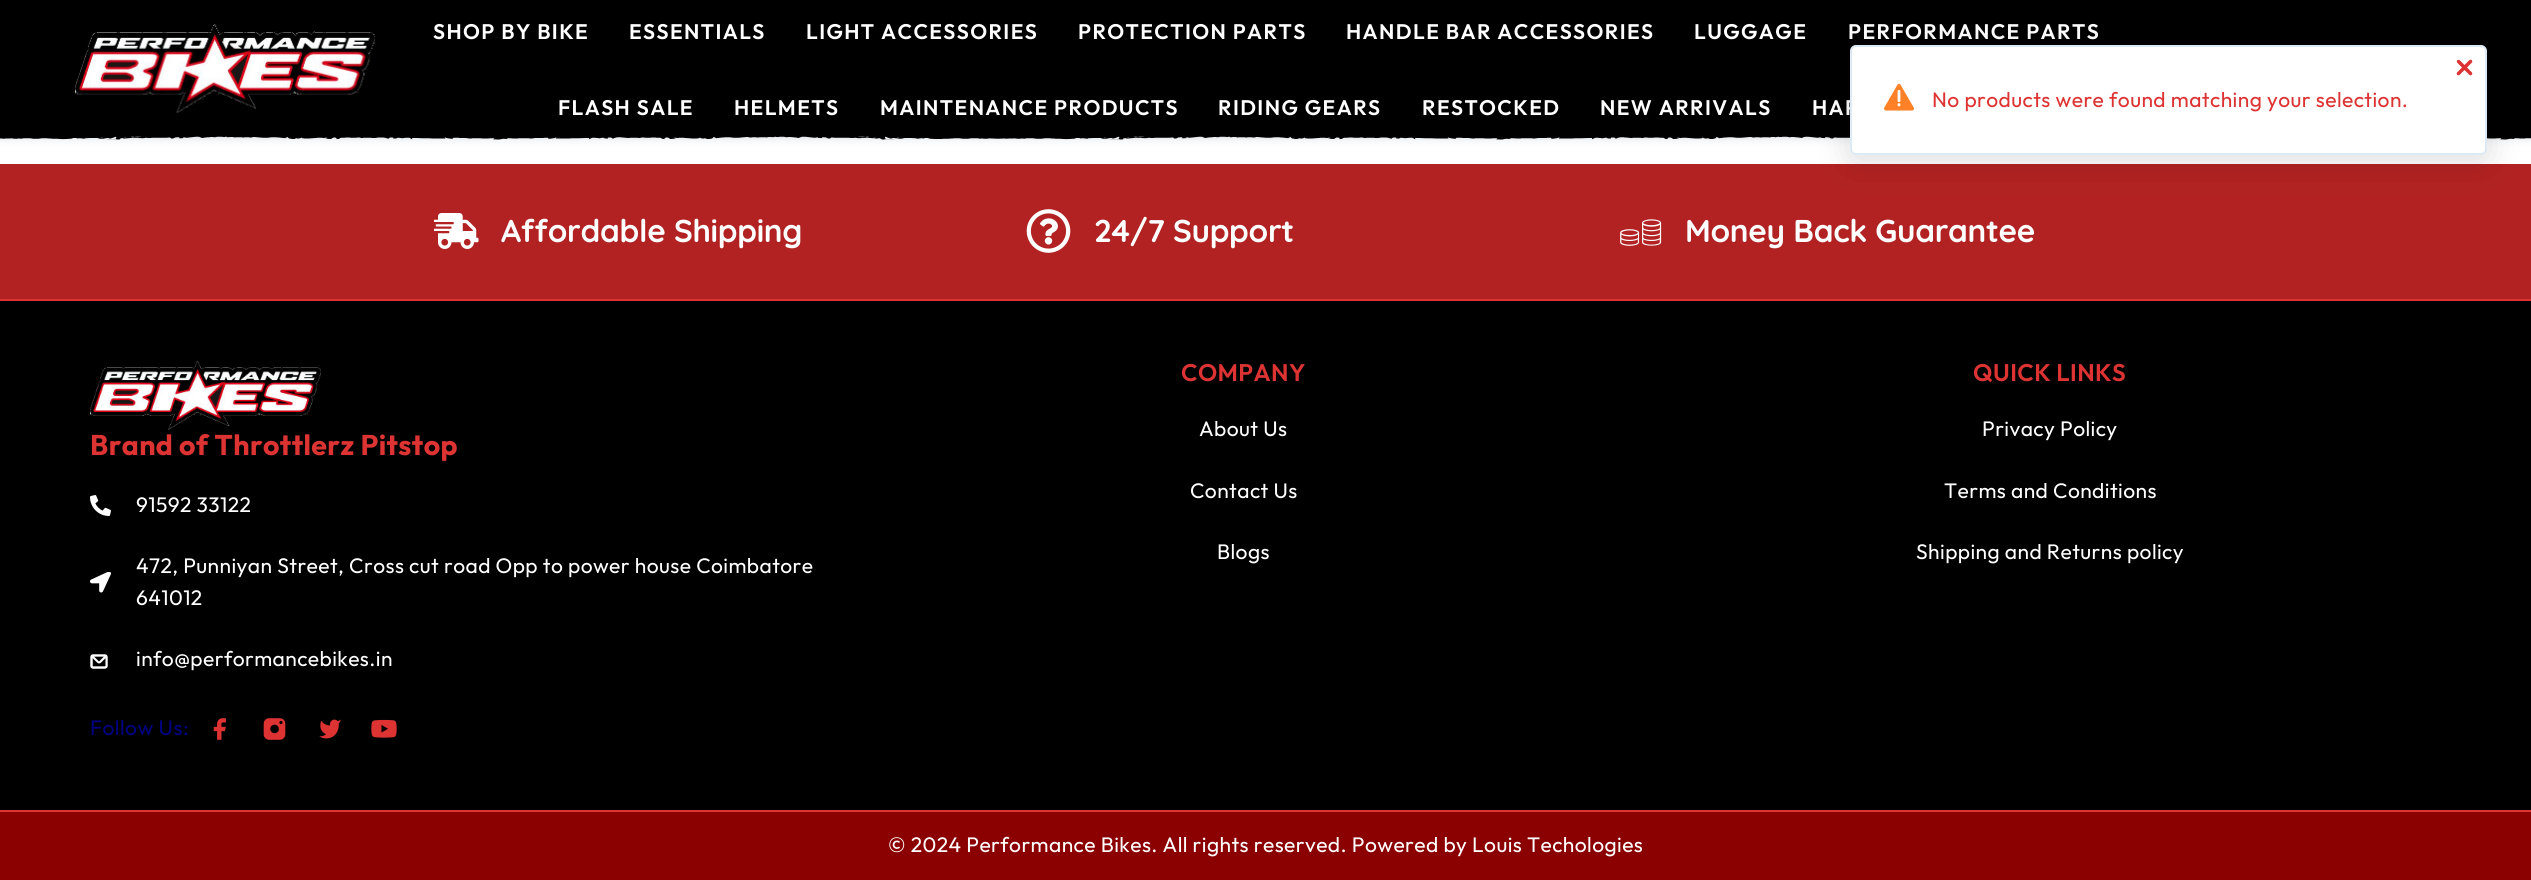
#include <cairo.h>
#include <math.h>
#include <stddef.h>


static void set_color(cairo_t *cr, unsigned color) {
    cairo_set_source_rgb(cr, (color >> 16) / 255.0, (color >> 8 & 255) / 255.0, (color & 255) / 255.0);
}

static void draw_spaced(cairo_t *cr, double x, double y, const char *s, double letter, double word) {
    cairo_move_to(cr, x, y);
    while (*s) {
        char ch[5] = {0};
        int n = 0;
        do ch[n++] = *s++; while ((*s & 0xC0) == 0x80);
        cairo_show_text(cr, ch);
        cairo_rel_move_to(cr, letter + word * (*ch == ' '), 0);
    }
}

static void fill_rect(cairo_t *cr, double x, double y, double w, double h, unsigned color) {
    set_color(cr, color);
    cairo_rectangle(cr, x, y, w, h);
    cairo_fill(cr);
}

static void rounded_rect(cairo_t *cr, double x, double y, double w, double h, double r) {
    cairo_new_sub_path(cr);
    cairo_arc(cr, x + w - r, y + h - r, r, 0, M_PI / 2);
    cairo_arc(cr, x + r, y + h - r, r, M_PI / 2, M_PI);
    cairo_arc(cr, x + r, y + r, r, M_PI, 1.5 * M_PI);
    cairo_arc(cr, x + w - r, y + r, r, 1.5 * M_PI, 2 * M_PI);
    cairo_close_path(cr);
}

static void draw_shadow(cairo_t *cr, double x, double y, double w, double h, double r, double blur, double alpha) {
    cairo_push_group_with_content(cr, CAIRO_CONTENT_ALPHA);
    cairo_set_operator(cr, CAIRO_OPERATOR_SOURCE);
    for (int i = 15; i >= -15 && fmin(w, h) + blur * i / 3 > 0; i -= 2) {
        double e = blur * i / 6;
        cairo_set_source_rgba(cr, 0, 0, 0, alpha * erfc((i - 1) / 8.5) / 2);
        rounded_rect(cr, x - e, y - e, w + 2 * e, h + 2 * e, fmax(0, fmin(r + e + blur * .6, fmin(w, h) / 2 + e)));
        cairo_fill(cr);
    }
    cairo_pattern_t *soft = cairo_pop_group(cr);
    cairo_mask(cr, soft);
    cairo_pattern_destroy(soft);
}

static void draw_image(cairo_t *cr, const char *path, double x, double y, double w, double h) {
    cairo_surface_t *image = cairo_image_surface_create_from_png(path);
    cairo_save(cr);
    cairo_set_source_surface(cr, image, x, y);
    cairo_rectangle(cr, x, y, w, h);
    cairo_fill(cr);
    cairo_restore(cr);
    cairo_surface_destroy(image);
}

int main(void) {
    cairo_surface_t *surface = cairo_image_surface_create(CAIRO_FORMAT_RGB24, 2531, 880);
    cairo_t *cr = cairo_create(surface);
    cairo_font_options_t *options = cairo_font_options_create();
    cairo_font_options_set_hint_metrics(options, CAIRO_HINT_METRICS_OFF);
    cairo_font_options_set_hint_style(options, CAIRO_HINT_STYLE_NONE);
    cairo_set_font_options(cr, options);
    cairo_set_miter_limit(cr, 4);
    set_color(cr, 0xFFFFFF);
    cairo_paint(cr);
    set_color(cr, 0x143A66);
    draw_shadow(cr, 0, 2, 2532, 135, 0, 4.5, 0.23);
    fill_rect(cr, 0, 0, 2531, 135, 0x000000);
    draw_image(cr, "assets/img1.png", 75, 24, 300, 89);
    cairo_select_font_face(cr, "Outfit SemiBold", CAIRO_FONT_SLANT_NORMAL, CAIRO_FONT_WEIGHT_NORMAL);
    cairo_set_font_size(cr, 21.1);
    set_color(cr, 0xFFFFFF);
    draw_spaced(cr, 433, 39, "SHOP BY BIKE", 1.4, 0);
    draw_spaced(cr, 629, 39, "ESSENTIALS", 1.4, 0);
    draw_spaced(cr, 806, 39, "LIGHT ACCESSORIES", 1.4, 0);
    draw_spaced(cr, 1078, 39, "PROTECTION PARTS", 1.4, 0);
    draw_spaced(cr, 1346, 39, "HANDLE BAR ACCESSORIES", 1.4, 0);
    draw_spaced(cr, 1694, 39, "LUGGAGE", 1.4, 0);
    draw_spaced(cr, 1848, 39, "PERFORMANCE PARTS", 1.4, 0);
    draw_spaced(cr, 558, 115, "FLASH SALE", 1.4, 0);
    draw_spaced(cr, 734, 115, "HELMETS", 1.4, 0);
    draw_spaced(cr, 880, 115, "MAINTENANCE PRODUCTS", 1.4, 0);
    draw_spaced(cr, 1218, 115, "RIDING GEARS", 1.4, 0);
    draw_spaced(cr, 1422, 115, "RESTOCKED", 1.4, 0);
    draw_spaced(cr, 1600, 115, "NEW ARRIVALS", 1.4, 0);
    draw_spaced(cr, 1812, 115, "HAP", 1.4, 0);
    draw_image(cr, "assets/img2.png", 0, 135, 2531, 5);
    fill_rect(cr, 0, 164, 2531, 135, 0xB22222);
    set_color(cr, 0x000000);
    draw_shadow(cr, 1847, 48, 643, 116, 9, 16.5, 0.12);
    set_color(cr, 0xFFFFFF);
    rounded_rect(cr, 1851, 46, 635, 108, 5);
    cairo_fill_preserve(cr);
    set_color(cr, 0xDCEAF6);
    cairo_stroke(cr);
    draw_image(cr, "assets/img3.png", 2456, 59, 17, 17);
    draw_image(cr, "assets/img4.png", 1884, 83, 30, 28);
    cairo_select_font_face(cr, "Outfit", CAIRO_FONT_SLANT_NORMAL, CAIRO_FONT_WEIGHT_NORMAL);
    cairo_set_font_size(cr, 21);
    set_color(cr, 0xDD3333);
    draw_spaced(cr, 1932, 107, "No products were found matching your selection.", 0.42, 0);
    draw_image(cr, "assets/img5.png", 434, 213, 45, 36);
    cairo_select_font_face(cr, "Quicksand", CAIRO_FONT_SLANT_NORMAL, CAIRO_FONT_WEIGHT_BOLD);
    cairo_set_font_size(cr, 31.5);
    set_color(cr, 0xFFFFFF);
    draw_spaced(cr, 501, 242, "Affordable Shipping", -0.3, 0);
    draw_image(cr, "assets/img6.png", 1026, 209, 45, 44);
    draw_spaced(cr, 1094, 242, "24/7 Support", -0.3, 0);
    draw_image(cr, "assets/img7.png", 1620, 219, 42, 27);
    draw_spaced(cr, 1685, 242, "Money Back Guarantee", -0.3, 0);
    fill_rect(cr, 0, 301, 2531, 509, 0x000000);
    fill_rect(cr, 0, 299, 2531, 2, 0xDD3333);
    fill_rect(cr, 0, 810, 2531, 2, 0xDD3333);
    draw_image(cr, "assets/img8.png", 90, 360, 231, 70);
    cairo_select_font_face(cr, "Outfit", CAIRO_FONT_SLANT_NORMAL, CAIRO_FONT_WEIGHT_BOLD);
    cairo_set_font_size(cr, 28.5);
    draw_spaced(cr, 90, 455, "Brand of Throttlerz Pitstop", 0.42, 0);
    draw_image(cr, "assets/img9.png", 90, 495, 21, 21);
    cairo_select_font_face(cr, "Outfit", CAIRO_FONT_SLANT_NORMAL, CAIRO_FONT_WEIGHT_NORMAL);
    cairo_set_font_size(cr, 21);
    set_color(cr, 0xFFFFFF);
    draw_spaced(cr, 136, 512, "91592 33122", 0.42, 0);
    draw_image(cr, "assets/img10.png", 90, 572, 21, 21);
    draw_spaced(cr, 136, 573, "472, Punniyan Street, Cross cut road Opp to power house Coimbatore", 0.42, 0);
    draw_spaced(cr, 136, 605, "641012", 0.42, 0);
    draw_image(cr, "assets/img11.png", 90, 654, 18, 15);
    draw_spaced(cr, 136, 666, "info@performancebikes.in", 0.42, 0);
    set_color(cr, 0x000080);
    draw_spaced(cr, 90, 735, "Follow Us:", 0.5, 0);
    draw_image(cr, "assets/img12.png", 213, 718, 13, 22);
    draw_image(cr, "assets/img13.png", 263, 718, 23, 22);
    draw_image(cr, "assets/img14.png", 319, 719, 22, 20);
    draw_image(cr, "assets/img15.png", 371, 719, 26, 19);
    cairo_select_font_face(cr, "Outfit SemiBold", CAIRO_FONT_SLANT_NORMAL, CAIRO_FONT_WEIGHT_NORMAL);
    cairo_set_font_size(cr, 24);
    set_color(cr, 0xDD3333);
    draw_spaced(cr, 1181, 381, "COMPANY", 0.42, 0);
    cairo_select_font_face(cr, "Outfit", CAIRO_FONT_SLANT_NORMAL, CAIRO_FONT_WEIGHT_NORMAL);
    cairo_set_font_size(cr, 21);
    set_color(cr, 0xFFFFFF);
    draw_spaced(cr, 1199, 436, "About Us", 0.42, 0);
    draw_spaced(cr, 1190, 498, "Contact Us", 0.42, 0);
    draw_spaced(cr, 1217, 559, "Blogs", 0.42, 0);
    cairo_select_font_face(cr, "Outfit SemiBold", CAIRO_FONT_SLANT_NORMAL, CAIRO_FONT_WEIGHT_NORMAL);
    cairo_set_font_size(cr, 24);
    set_color(cr, 0xDD3333);
    draw_spaced(cr, 1973, 381, "QUICK LINKS", 0.42, 0);
    cairo_select_font_face(cr, "Outfit", CAIRO_FONT_SLANT_NORMAL, CAIRO_FONT_WEIGHT_NORMAL);
    cairo_set_font_size(cr, 21);
    set_color(cr, 0xFFFFFF);
    draw_spaced(cr, 1982, 436, "Privacy Policy", 0.42, 0);
    draw_spaced(cr, 1944, 498, "Terms and Conditions", 0.42, 0);
    draw_spaced(cr, 1916, 559, "Shipping and Returns policy", 0.42, 0);
    fill_rect(cr, 0, 812, 2531, 68, 0x8B0000);
    set_color(cr, 0xFFFFFF);
    draw_spaced(cr, 888, 852, "© 2024 Performance Bikes. All rights reserved. Powered by Louis Techologies", 0.42, 0);
    cairo_surface_write_to_png(surface, "output.png");
    cairo_font_options_destroy(options);
    cairo_destroy(cr);
    cairo_surface_destroy(surface);
    return 0;
}
